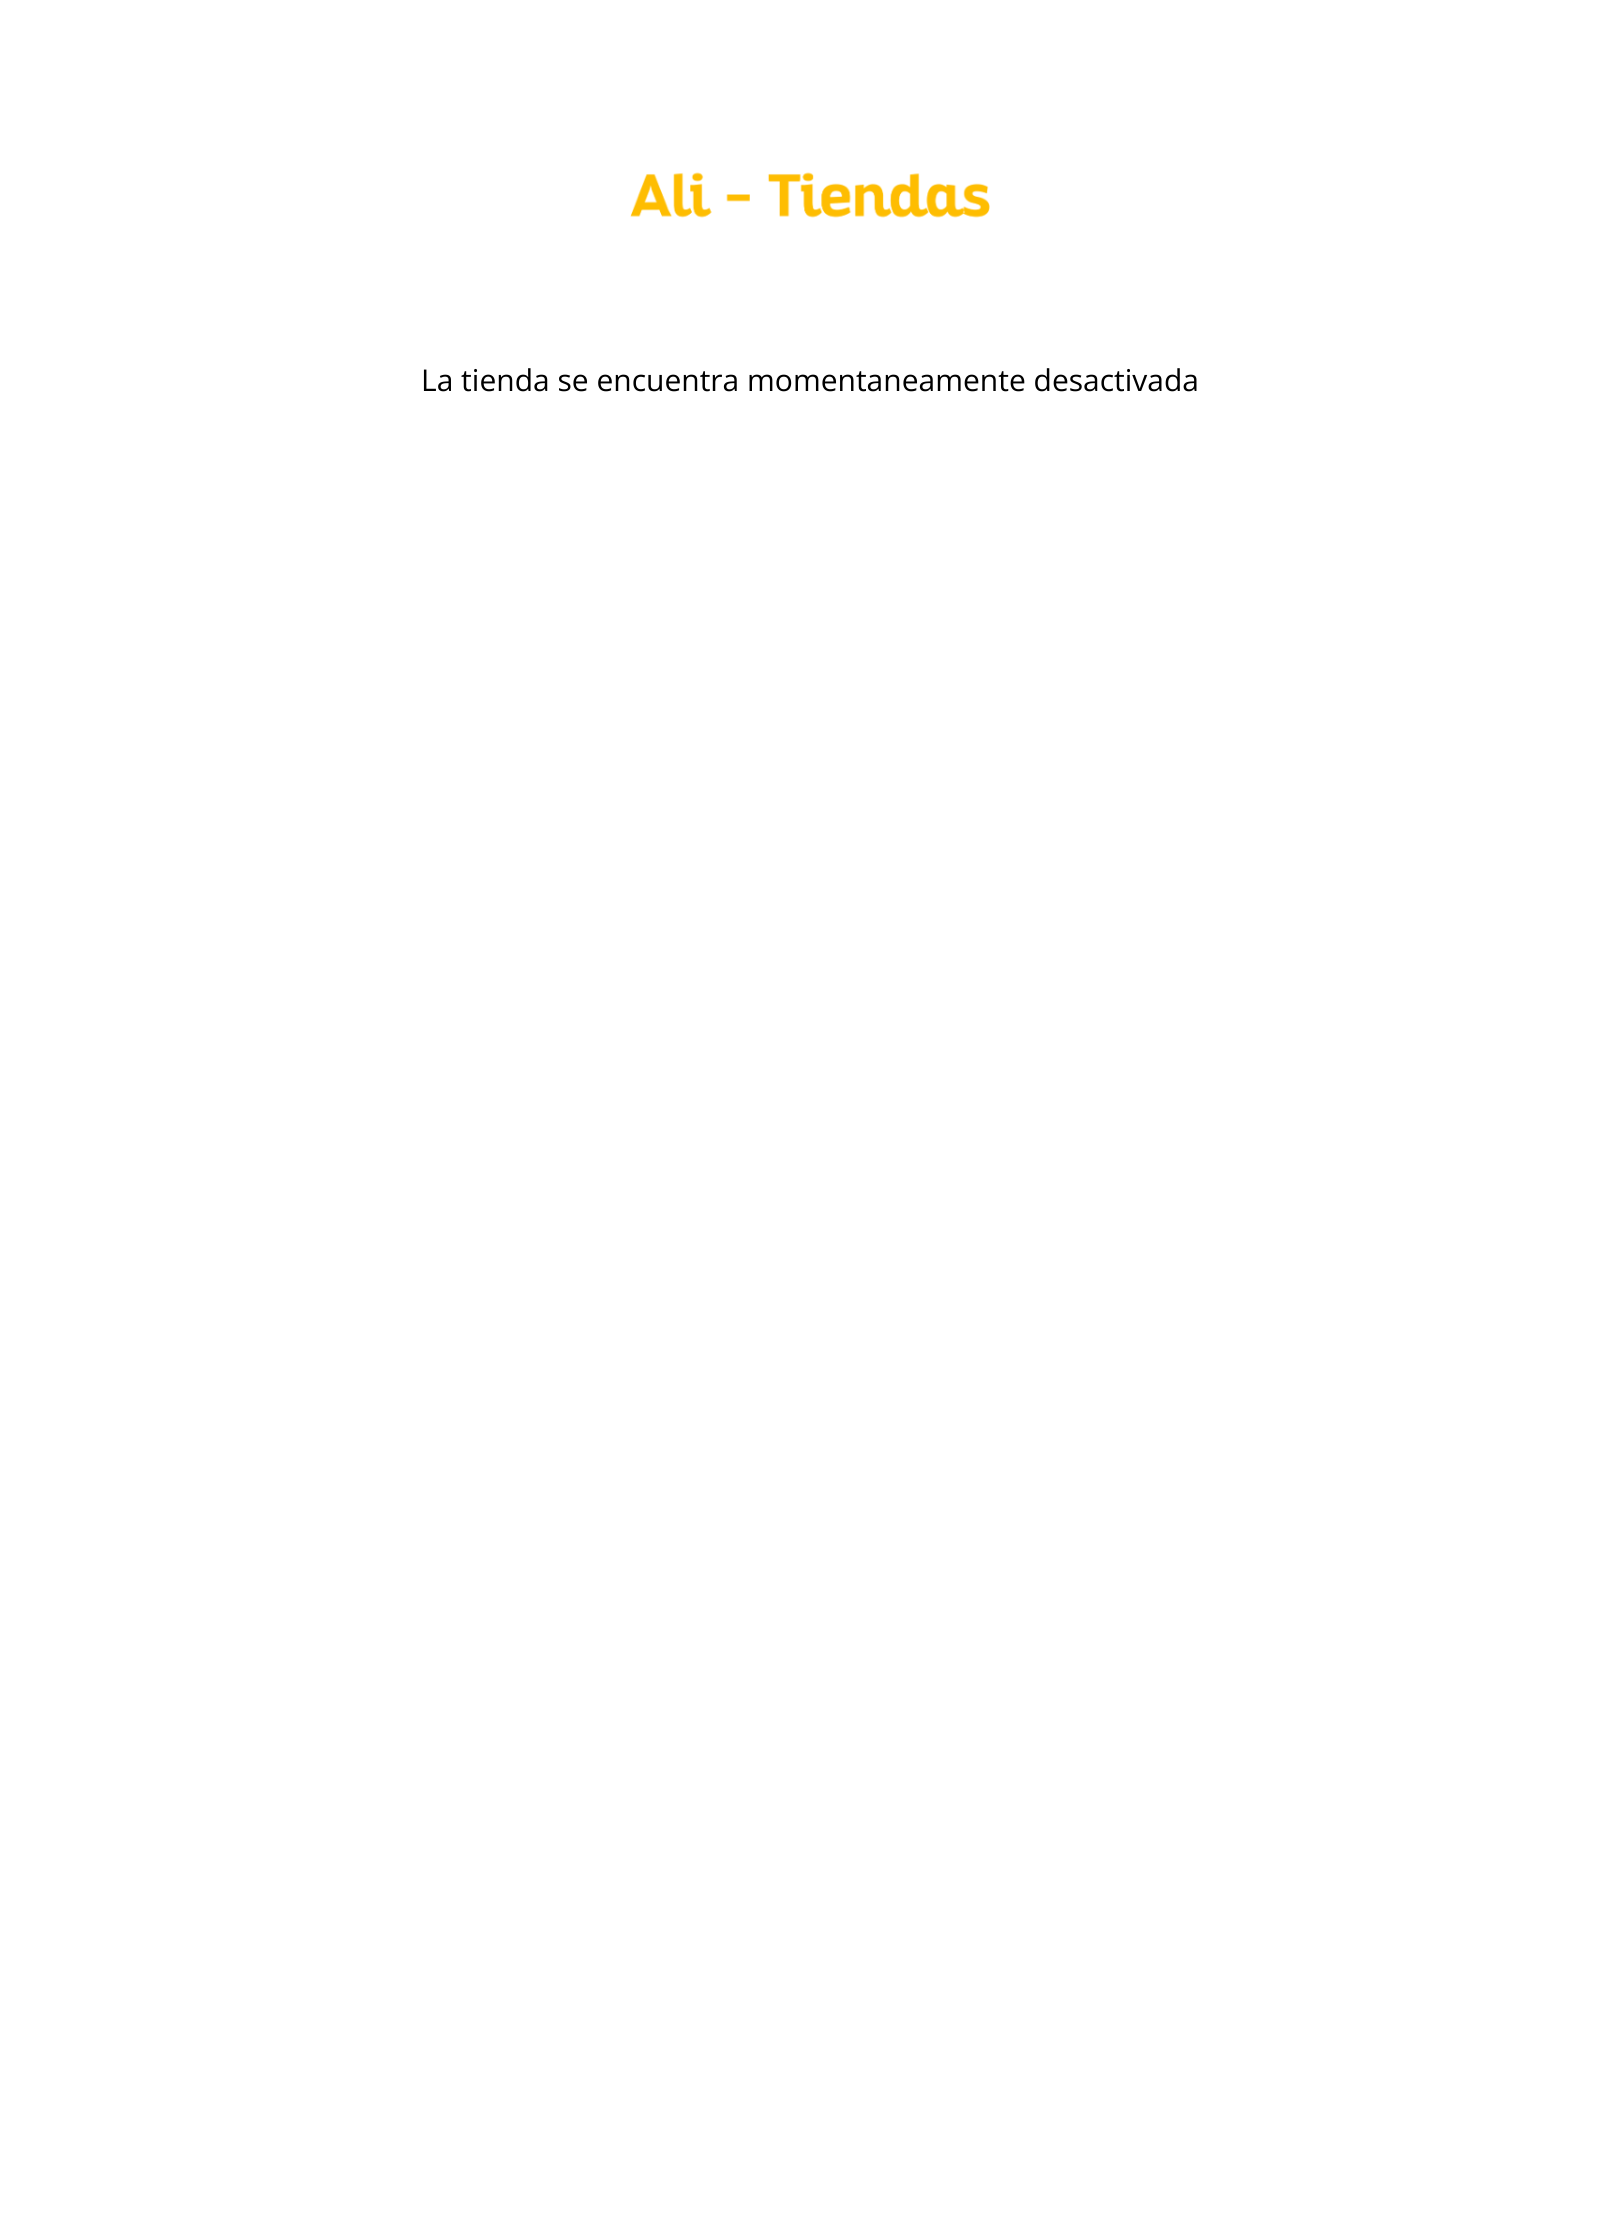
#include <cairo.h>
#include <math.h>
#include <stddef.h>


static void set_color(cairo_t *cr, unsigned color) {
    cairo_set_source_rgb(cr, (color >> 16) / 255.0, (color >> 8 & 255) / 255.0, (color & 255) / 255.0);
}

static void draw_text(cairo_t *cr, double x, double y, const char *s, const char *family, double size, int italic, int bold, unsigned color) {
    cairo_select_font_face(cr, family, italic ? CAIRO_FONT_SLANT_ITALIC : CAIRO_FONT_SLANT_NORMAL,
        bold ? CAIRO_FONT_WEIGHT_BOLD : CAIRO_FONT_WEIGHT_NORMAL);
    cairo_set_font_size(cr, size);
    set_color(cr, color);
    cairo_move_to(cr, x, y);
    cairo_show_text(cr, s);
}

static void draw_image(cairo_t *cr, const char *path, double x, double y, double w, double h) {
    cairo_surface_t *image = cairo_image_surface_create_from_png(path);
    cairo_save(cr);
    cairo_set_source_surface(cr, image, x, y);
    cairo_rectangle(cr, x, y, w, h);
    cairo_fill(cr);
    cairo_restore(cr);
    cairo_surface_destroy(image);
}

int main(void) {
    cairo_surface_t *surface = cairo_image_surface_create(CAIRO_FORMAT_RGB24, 1619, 2216);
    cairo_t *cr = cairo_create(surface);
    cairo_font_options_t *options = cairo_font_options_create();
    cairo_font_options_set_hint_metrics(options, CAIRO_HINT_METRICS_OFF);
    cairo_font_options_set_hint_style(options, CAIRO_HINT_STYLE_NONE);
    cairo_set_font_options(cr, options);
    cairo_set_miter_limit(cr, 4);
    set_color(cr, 0xFFFFFF);
    cairo_paint(cr);
    draw_image(cr, "assets/img1.png", 630, 172, 360, 46);
    draw_text(cr, 421, 391, "La tienda se encuentra momentaneamente desactivada", "Open Sans", 30, 0, 0, 0x000000);
    cairo_surface_write_to_png(surface, "output.png");
    cairo_font_options_destroy(options);
    cairo_destroy(cr);
    cairo_surface_destroy(surface);
    return 0;
}
